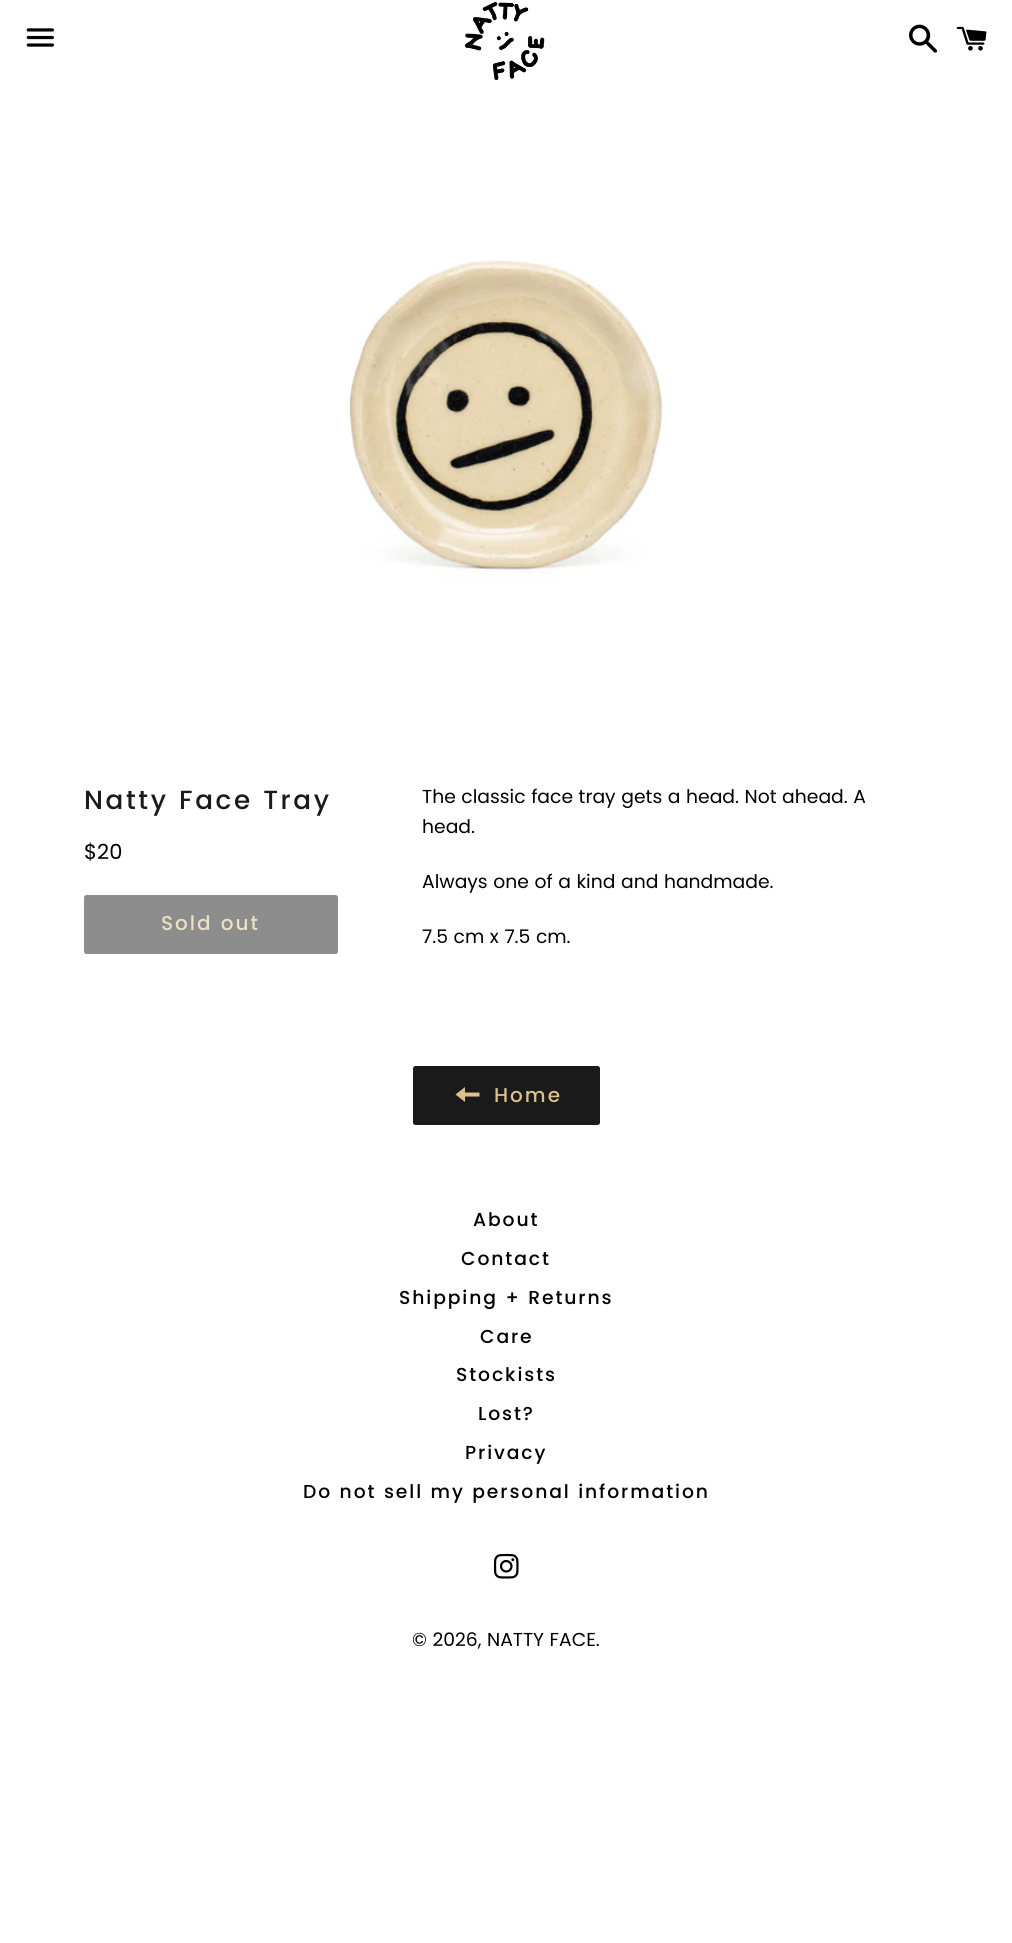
#include <cairo.h>
#include <math.h>
#include <stddef.h>


static void set_color(cairo_t *cr, unsigned color) {
    cairo_set_source_rgb(cr, (color >> 16) / 255.0, (color >> 8 & 255) / 255.0, (color & 255) / 255.0);
}

static void draw_text(cairo_t *cr, double x, double y, const char *s, const char *family, double size, int italic, int bold, unsigned color) {
    cairo_select_font_face(cr, family, italic ? CAIRO_FONT_SLANT_ITALIC : CAIRO_FONT_SLANT_NORMAL,
        bold ? CAIRO_FONT_WEIGHT_BOLD : CAIRO_FONT_WEIGHT_NORMAL);
    cairo_set_font_size(cr, size);
    set_color(cr, color);
    cairo_move_to(cr, x, y);
    cairo_show_text(cr, s);
}

static void draw_spaced(cairo_t *cr, double x, double y, const char *s, double letter, double word) {
    cairo_move_to(cr, x, y);
    while (*s) {
        char ch[5] = {0};
        int n = 0;
        do ch[n++] = *s++; while ((*s & 0xC0) == 0x80);
        cairo_show_text(cr, ch);
        cairo_rel_move_to(cr, letter + word * (*ch == ' '), 0);
    }
}

static void rounded_rect(cairo_t *cr, double x, double y, double w, double h, double r) {
    cairo_new_sub_path(cr);
    cairo_arc(cr, x + w - r, y + h - r, r, 0, M_PI / 2);
    cairo_arc(cr, x + r, y + h - r, r, M_PI / 2, M_PI);
    cairo_arc(cr, x + r, y + r, r, M_PI, 1.5 * M_PI);
    cairo_arc(cr, x + w - r, y + r, r, 1.5 * M_PI, 2 * M_PI);
    cairo_close_path(cr);
}

static void draw_image(cairo_t *cr, const char *path, double x, double y, double w, double h) {
    cairo_surface_t *image = cairo_image_surface_create_from_png(path);
    cairo_save(cr);
    cairo_set_source_surface(cr, image, x, y);
    cairo_rectangle(cr, x, y, w, h);
    cairo_fill(cr);
    cairo_restore(cr);
    cairo_surface_destroy(image);
}

int main(void) {
    cairo_surface_t *surface = cairo_image_surface_create(CAIRO_FORMAT_RGB24, 1012, 1943);
    cairo_t *cr = cairo_create(surface);
    cairo_font_options_t *options = cairo_font_options_create();
    cairo_font_options_set_hint_metrics(options, CAIRO_HINT_METRICS_OFF);
    cairo_font_options_set_hint_style(options, CAIRO_HINT_STYLE_NONE);
    cairo_set_font_options(cr, options);
    cairo_set_miter_limit(cr, 4);
    set_color(cr, 0xFFFFFF);
    cairo_paint(cr);
    draw_image(cr, "assets/img1.png", 26, 28, 28, 19);
    draw_image(cr, "assets/img2.png", 464, 1, 81, 79);
    draw_image(cr, "assets/img3.png", 909, 24, 28, 29);
    draw_image(cr, "assets/img4.png", 956, 26, 31, 25);
    draw_image(cr, "assets/img5.png", 349, 260, 315, 320);
    cairo_select_font_face(cr, "Poppins Medium", CAIRO_FONT_SLANT_NORMAL, CAIRO_FONT_WEIGHT_NORMAL);
    cairo_set_font_size(cr, 26.25);
    set_color(cr, 0x1A1A1A);
    draw_spaced(cr, 84, 809, "Natty Face Tray", 2.6, 0);
    draw_text(cr, 84, 859, "$20", "Poppins", 21, 0, 0, 0x000000);
    set_color(cr, 0x8D8D8D);
    rounded_rect(cr, 85.5, 896.5, 251, 56, 1);
    cairo_fill_preserve(cr);
    cairo_set_line_width(cr, 3);
    cairo_stroke(cr);
    cairo_select_font_face(cr, "Poppins Medium", CAIRO_FONT_SLANT_NORMAL, CAIRO_FONT_WEIGHT_NORMAL);
    cairo_set_font_size(cr, 20);
    set_color(cr, 0xEDE0C5);
    draw_spaced(cr, 161, 930, "Sold out", 2, 0);
    draw_text(cr, 422, 803, "The classic face tray gets a head. Not ahead. A", "Poppins", 18.75, 0, 0, 0x000000);
    draw_text(cr, 422, 833, "head.", "Poppins", 18.75, 0, 0, 0x000000);
    draw_text(cr, 422, 888, "Always one of a kind and handmade.", "Poppins", 18.75, 0, 0, 0x000000);
    draw_text(cr, 422, 943, "7.5 cm x 7.5 cm.", "Poppins", 18.75, 0, 0, 0x000000);
    set_color(cr, 0x1A1A1A);
    rounded_rect(cr, 413, 1066, 187, 59, 2.5);
    cairo_fill(cr);
    set_color(cr, 0xDBC18B);
    cairo_new_path(cr);
    cairo_move_to(cr, 465, 1092.5);
    cairo_line_to(cr, 465, 1087);
    cairo_line_to(cr, 455.5, 1094.5);
    cairo_line_to(cr, 465, 1102);
    cairo_line_to(cr, 465, 1096.5);
    cairo_line_to(cr, 479.5, 1096.5);
    cairo_line_to(cr, 479.5, 1092.5);
    cairo_close_path(cr);
    cairo_fill(cr);
    cairo_select_font_face(cr, "Poppins Medium", CAIRO_FONT_SLANT_NORMAL, CAIRO_FONT_WEIGHT_NORMAL);
    cairo_set_font_size(cr, 20);
    draw_spaced(cr, 494, 1102, "Home", 2, 0);
    cairo_set_font_size(cr, 18.75);
    set_color(cr, 0x000000);
    draw_spaced(cr, 473, 1226, "About", 1.9, 0);
    draw_spaced(cr, 461, 1265, "Contact", 1.9, 0);
    draw_spaced(cr, 399, 1304, "Shipping + Returns", 1.9, 0);
    draw_spaced(cr, 480, 1343, "Care", 1.9, 0);
    draw_spaced(cr, 456, 1381, "Stockists", 1.9, 0);
    draw_spaced(cr, 478, 1420, "Lost?", 1.9, 0);
    draw_spaced(cr, 465, 1459, "Privacy", 1.9, 0);
    draw_spaced(cr, 303, 1498, "Do not sell my personal information", 1.9, 0);
    draw_image(cr, "assets/img6.png", 493, 1553, 26, 26);
    draw_text(cr, 412, 1646, "© 2026, NATTY FACE.", "Poppins", 18.75, 0, 0, 0x000000);
    cairo_surface_write_to_png(surface, "output.png");
    cairo_font_options_destroy(options);
    cairo_destroy(cr);
    cairo_surface_destroy(surface);
    return 0;
}
